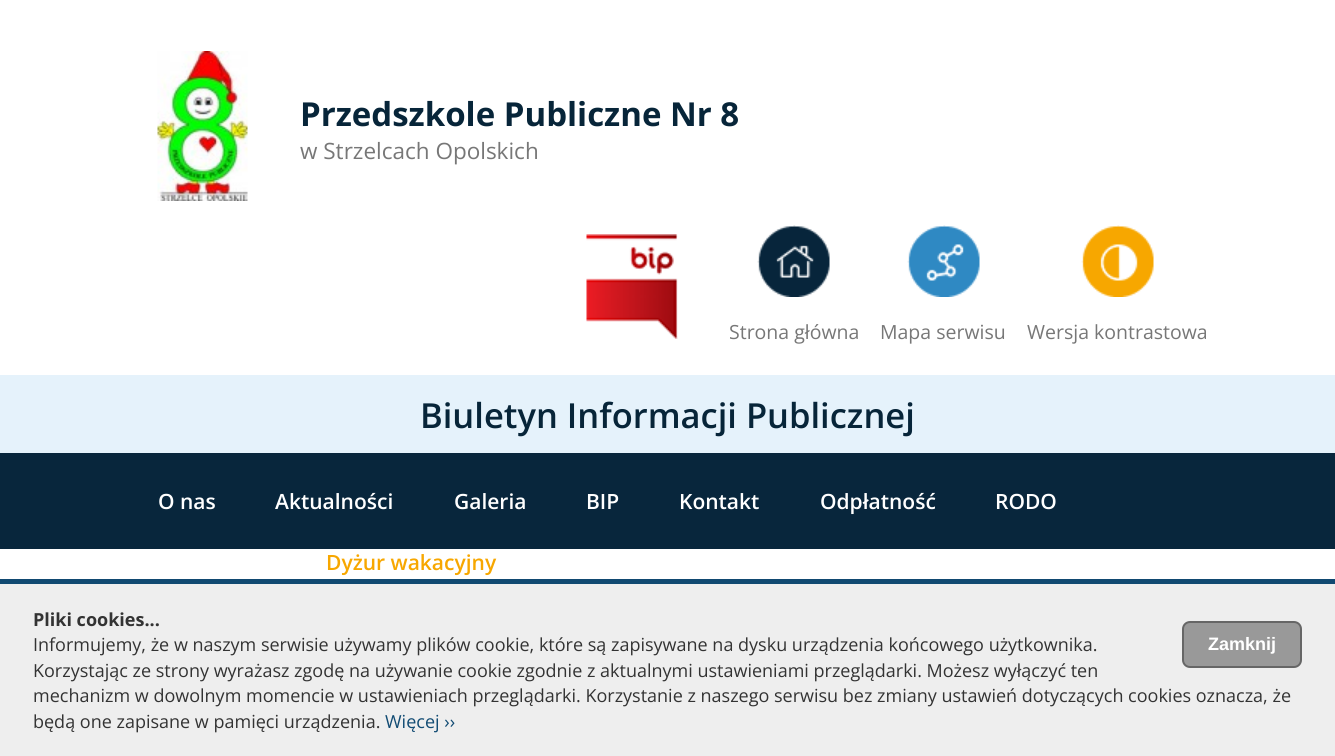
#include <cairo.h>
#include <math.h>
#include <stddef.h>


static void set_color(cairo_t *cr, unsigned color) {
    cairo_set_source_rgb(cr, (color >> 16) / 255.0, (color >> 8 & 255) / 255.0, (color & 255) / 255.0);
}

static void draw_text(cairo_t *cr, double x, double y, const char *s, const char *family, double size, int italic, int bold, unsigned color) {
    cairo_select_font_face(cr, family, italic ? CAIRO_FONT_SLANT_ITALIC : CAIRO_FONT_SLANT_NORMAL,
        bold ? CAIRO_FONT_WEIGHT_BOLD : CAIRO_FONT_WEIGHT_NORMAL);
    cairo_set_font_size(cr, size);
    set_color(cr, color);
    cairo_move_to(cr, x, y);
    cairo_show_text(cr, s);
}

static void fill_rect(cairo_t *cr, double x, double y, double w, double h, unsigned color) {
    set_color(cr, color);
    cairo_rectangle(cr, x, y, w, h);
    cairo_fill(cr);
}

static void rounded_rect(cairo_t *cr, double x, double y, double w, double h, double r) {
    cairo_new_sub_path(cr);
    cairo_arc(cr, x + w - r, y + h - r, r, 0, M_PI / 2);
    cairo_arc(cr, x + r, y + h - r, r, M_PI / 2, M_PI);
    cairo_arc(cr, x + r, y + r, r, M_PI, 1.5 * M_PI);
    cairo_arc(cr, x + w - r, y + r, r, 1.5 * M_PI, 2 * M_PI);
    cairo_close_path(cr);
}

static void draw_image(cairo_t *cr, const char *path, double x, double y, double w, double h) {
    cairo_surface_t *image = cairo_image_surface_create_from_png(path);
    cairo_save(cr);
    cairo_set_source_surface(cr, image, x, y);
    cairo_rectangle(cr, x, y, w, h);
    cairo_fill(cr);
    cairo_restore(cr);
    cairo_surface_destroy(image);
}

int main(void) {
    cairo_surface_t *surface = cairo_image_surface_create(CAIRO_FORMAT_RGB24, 1335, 756);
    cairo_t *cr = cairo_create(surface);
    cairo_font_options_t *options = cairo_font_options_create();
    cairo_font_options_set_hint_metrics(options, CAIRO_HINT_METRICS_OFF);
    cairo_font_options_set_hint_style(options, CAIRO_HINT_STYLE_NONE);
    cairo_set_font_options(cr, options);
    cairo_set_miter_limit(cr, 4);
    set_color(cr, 0xFFFFFF);
    cairo_paint(cr);
    draw_image(cr, "assets/img1.png", 157, 51, 91, 150);
    draw_text(cr, 300, 126, "Przedszkole Publiczne Nr 8", "Open Sans", 33, 0, 1, 0x072539);
    draw_text(cr, 300, 159, "w Strzelcach Opolskich", "Open Sans", 22.5, 0, 0, 0x777777);
    draw_image(cr, "assets/img2.png", 586, 234, 92, 105);
    draw_image(cr, "assets/img3.png", 757, 225, 73, 72);
    draw_text(cr, 729, 339, "Strona główna", "Open Sans", 19.5, 0, 0, 0x777777);
    draw_image(cr, "assets/img4.png", 907, 225, 73, 72);
    draw_text(cr, 880, 339, "Mapa serwisu", "Open Sans", 19.5, 0, 0, 0x777777);
    draw_image(cr, "assets/img5.png", 1081, 225, 73, 72);
    draw_text(cr, 1027, 339, "Wersja kontrastowa", "Open Sans", 19.5, 0, 0, 0x777777);
    fill_rect(cr, 0, 375, 1335, 78, 0xE5F2FB);
    draw_text(cr, 420, 428, "Biuletyn Informacji Publicznej", "Open Sans SemiBold", 34.5, 0, 0, 0x072539);
    fill_rect(cr, 0, 453, 1335, 96, 0x08263C);
    draw_text(cr, 158, 509, "O nas", "Open Sans SemiBold", 21, 0, 0, 0xFFFFFF);
    draw_text(cr, 275, 509, "Aktualności", "Open Sans SemiBold", 21, 0, 0, 0xFFFFFF);
    draw_text(cr, 454, 509, "Galeria", "Open Sans SemiBold", 21, 0, 0, 0xFFFFFF);
    draw_text(cr, 586, 509, "BIP", "Open Sans SemiBold", 21, 0, 0, 0xFFFFFF);
    draw_text(cr, 679, 509, "Kontakt", "Open Sans SemiBold", 21, 0, 0, 0xFFFFFF);
    draw_text(cr, 820, 509, "Odpłatność", "Open Sans SemiBold", 21, 0, 0, 0xFFFFFF);
    draw_text(cr, 995, 509, "RODO", "Open Sans SemiBold", 21, 0, 0, 0xFFFFFF);
    draw_text(cr, 326, 570, "Dyżur wakacyjny", "Open Sans SemiBold", 21, 0, 0, 0xF7A700);
    fill_rect(cr, 0, 579, 1335, 5, 0x114971);
    fill_rect(cr, 0, 584, 1335, 172, 0xEEEEEE);
    draw_text(cr, 33, 626, "Pliki cookies...", "Open Sans", 18, 0, 1, 0x333333);
    draw_text(cr, 33, 651, "Informujemy, że w naszym serwisie używamy plików cookie, które są zapisywane na dysku urządzenia końcowego użytkownika.", "Open Sans", 18, 0, 0, 0x333333);
    set_color(cr, 0x999999);
    rounded_rect(cr, 1183, 622, 118, 45, 7);
    cairo_fill_preserve(cr);
    set_color(cr, 0x666666);
    cairo_stroke(cr);
    draw_text(cr, 1208, 650, "Zamknij", "Liberation Sans", 18, 0, 1, 0xFFFFFF);
    draw_text(cr, 33, 677, "Korzystając ze strony wyrażasz zgodę na używanie cookie zgodnie z aktualnymi ustawieniami przeglądarki. Możesz wyłączyć ten", "Open Sans", 18, 0, 0, 0x333333);
    draw_text(cr, 33, 702, "mechanizm w dowolnym momencie w ustawieniach przeglądarki. Korzystanie z naszego serwisu bez zmiany ustawień dotyczących cookies oznacza, że", "Open Sans", 18, 0, 0, 0x333333);
    draw_text(cr, 33, 728, "będą one zapisane w pamięci urządzenia.", "Open Sans", 18, 0, 0, 0x333333);
    draw_text(cr, 385, 728, "Więcej ››", "Open Sans", 18, 0, 0, 0x114B73);
    cairo_surface_write_to_png(surface, "output.png");
    cairo_font_options_destroy(options);
    cairo_destroy(cr);
    cairo_surface_destroy(surface);
    return 0;
}
